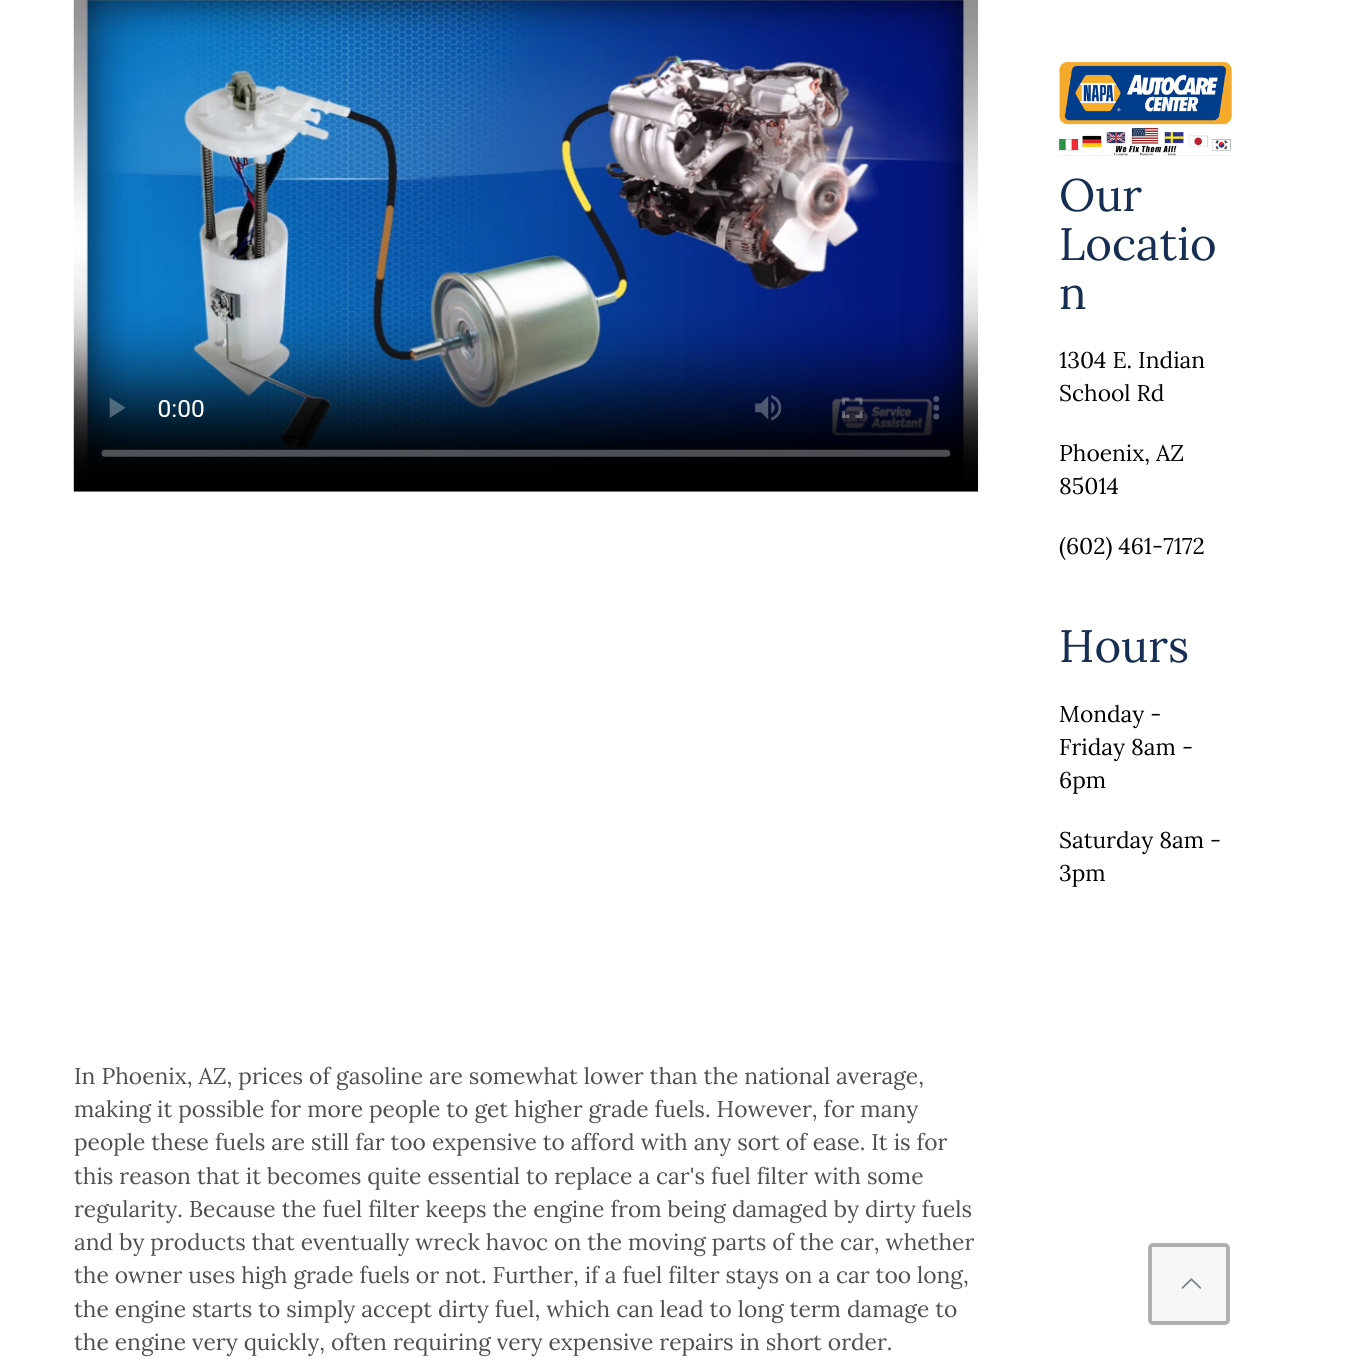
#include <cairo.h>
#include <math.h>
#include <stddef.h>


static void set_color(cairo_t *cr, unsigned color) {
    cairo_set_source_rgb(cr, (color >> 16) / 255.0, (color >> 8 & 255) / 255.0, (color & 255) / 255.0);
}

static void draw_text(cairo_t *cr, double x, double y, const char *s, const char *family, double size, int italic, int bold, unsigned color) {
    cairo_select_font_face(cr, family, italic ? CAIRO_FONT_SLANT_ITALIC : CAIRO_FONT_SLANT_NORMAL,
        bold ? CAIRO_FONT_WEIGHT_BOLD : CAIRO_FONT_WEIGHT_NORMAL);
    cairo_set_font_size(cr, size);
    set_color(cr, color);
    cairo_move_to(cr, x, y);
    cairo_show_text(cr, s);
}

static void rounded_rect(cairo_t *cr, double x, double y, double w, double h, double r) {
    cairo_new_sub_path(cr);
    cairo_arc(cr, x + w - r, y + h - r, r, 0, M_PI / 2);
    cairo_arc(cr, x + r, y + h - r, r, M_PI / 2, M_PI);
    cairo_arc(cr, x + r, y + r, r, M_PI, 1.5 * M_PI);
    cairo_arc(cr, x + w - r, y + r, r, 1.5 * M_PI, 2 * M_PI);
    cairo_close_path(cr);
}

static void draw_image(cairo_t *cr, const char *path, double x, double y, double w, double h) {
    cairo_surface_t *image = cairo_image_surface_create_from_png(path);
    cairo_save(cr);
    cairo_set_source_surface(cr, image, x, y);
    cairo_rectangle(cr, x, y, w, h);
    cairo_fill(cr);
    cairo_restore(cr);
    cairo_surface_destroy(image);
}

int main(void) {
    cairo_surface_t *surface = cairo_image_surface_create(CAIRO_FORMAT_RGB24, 1360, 1360);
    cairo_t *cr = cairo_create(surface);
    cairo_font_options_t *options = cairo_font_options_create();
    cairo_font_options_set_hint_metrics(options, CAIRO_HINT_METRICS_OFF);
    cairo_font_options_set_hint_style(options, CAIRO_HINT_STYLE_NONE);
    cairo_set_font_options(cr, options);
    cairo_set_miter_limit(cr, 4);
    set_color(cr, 0xFFFFFF);
    cairo_paint(cr);
    draw_image(cr, "assets/img1.png", 73, 0, 906, 492);
    draw_image(cr, "assets/img2.png", 1058, 62, 174, 94);
    draw_text(cr, 1059, 211, "Our", "Lora", 45.5, 0, 0, 0x172E54);
    draw_text(cr, 1059, 260, "Locatio", "Lora", 45.5, 0, 0, 0x172E54);
    draw_text(cr, 1059, 309, "n", "Lora", 45.5, 0, 0, 0x172E54);
    draw_text(cr, 1059, 368, "1304 E. Indian", "Lora", 22.75, 0, 0, 0x000000);
    draw_text(cr, 1059, 401, "School Rd", "Lora", 22.75, 0, 0, 0x000000);
    draw_text(cr, 1059, 461, "Phoenix, AZ", "Lora", 22.75, 0, 0, 0x000000);
    draw_text(cr, 1059, 494, "85014", "Lora", 22.75, 0, 0, 0x000000);
    draw_text(cr, 1059, 554, "(602) 461-7172", "Lora", 22.75, 0, 0, 0x000000);
    draw_text(cr, 1059, 662, "Hours", "Lora", 45.5, 0, 0, 0x172E54);
    draw_text(cr, 1059, 722, "Monday -", "Lora", 22.75, 0, 0, 0x000000);
    draw_text(cr, 1059, 755, "Friday 8am -", "Lora", 22.75, 0, 0, 0x000000);
    draw_text(cr, 1059, 788, "6pm", "Lora", 22.75, 0, 0, 0x000000);
    draw_text(cr, 1059, 848, "Saturday 8am -", "Lora", 22.75, 0, 0, 0x000000);
    draw_text(cr, 1059, 881, "3pm", "Lora", 22.75, 0, 0, 0x000000);
    draw_text(cr, 74, 1084, "In Phoenix, AZ, prices of gasoline are somewhat lower than the national average,", "Lora", 22.75, 0, 0, 0x4F4F4F);
    draw_text(cr, 74, 1117, "making it possible for more people to get higher grade fuels. However, for many", "Lora", 22.75, 0, 0, 0x4F4F4F);
    draw_text(cr, 74, 1150, "people these fuels are still far too expensive to afford with any sort of ease. It is for", "Lora", 22.75, 0, 0, 0x4F4F4F);
    draw_text(cr, 74, 1184, "this reason that it becomes quite essential to replace a car's fuel filter with some", "Lora", 22.75, 0, 0, 0x4F4F4F);
    draw_text(cr, 74, 1217, "regularity. Because the fuel filter keeps the engine from being damaged by dirty fuels", "Lora", 22.75, 0, 0, 0x4F4F4F);
    draw_text(cr, 74, 1250, "and by products that eventually wreck havoc on the moving parts of the car, whether", "Lora", 22.75, 0, 0, 0x4F4F4F);
    draw_text(cr, 74, 1283, "the owner uses high grade fuels or not. Further, if a fuel filter stays on a car too long,", "Lora", 22.75, 0, 0, 0x4F4F4F);
    draw_text(cr, 74, 1317, "the engine starts to simply accept dirty fuel, which can lead to long term damage to", "Lora", 22.75, 0, 0, 0x4F4F4F);
    draw_text(cr, 74, 1350, "the engine very quickly, often requiring very expensive repairs in short order.", "Lora", 22.75, 0, 0, 0x4F4F4F);
    set_color(cr, 0xF7F7F7);
    rounded_rect(cr, 1150, 1245, 78, 78, 3);
    cairo_fill_preserve(cr);
    set_color(cr, 0xAFAFAF);
    cairo_set_line_width(cr, 4);
    cairo_stroke(cr);
    draw_image(cr, "assets/img3.png", 1181, 1278, 21, 11);
    cairo_surface_write_to_png(surface, "output.png");
    cairo_font_options_destroy(options);
    cairo_destroy(cr);
    cairo_surface_destroy(surface);
    return 0;
}
